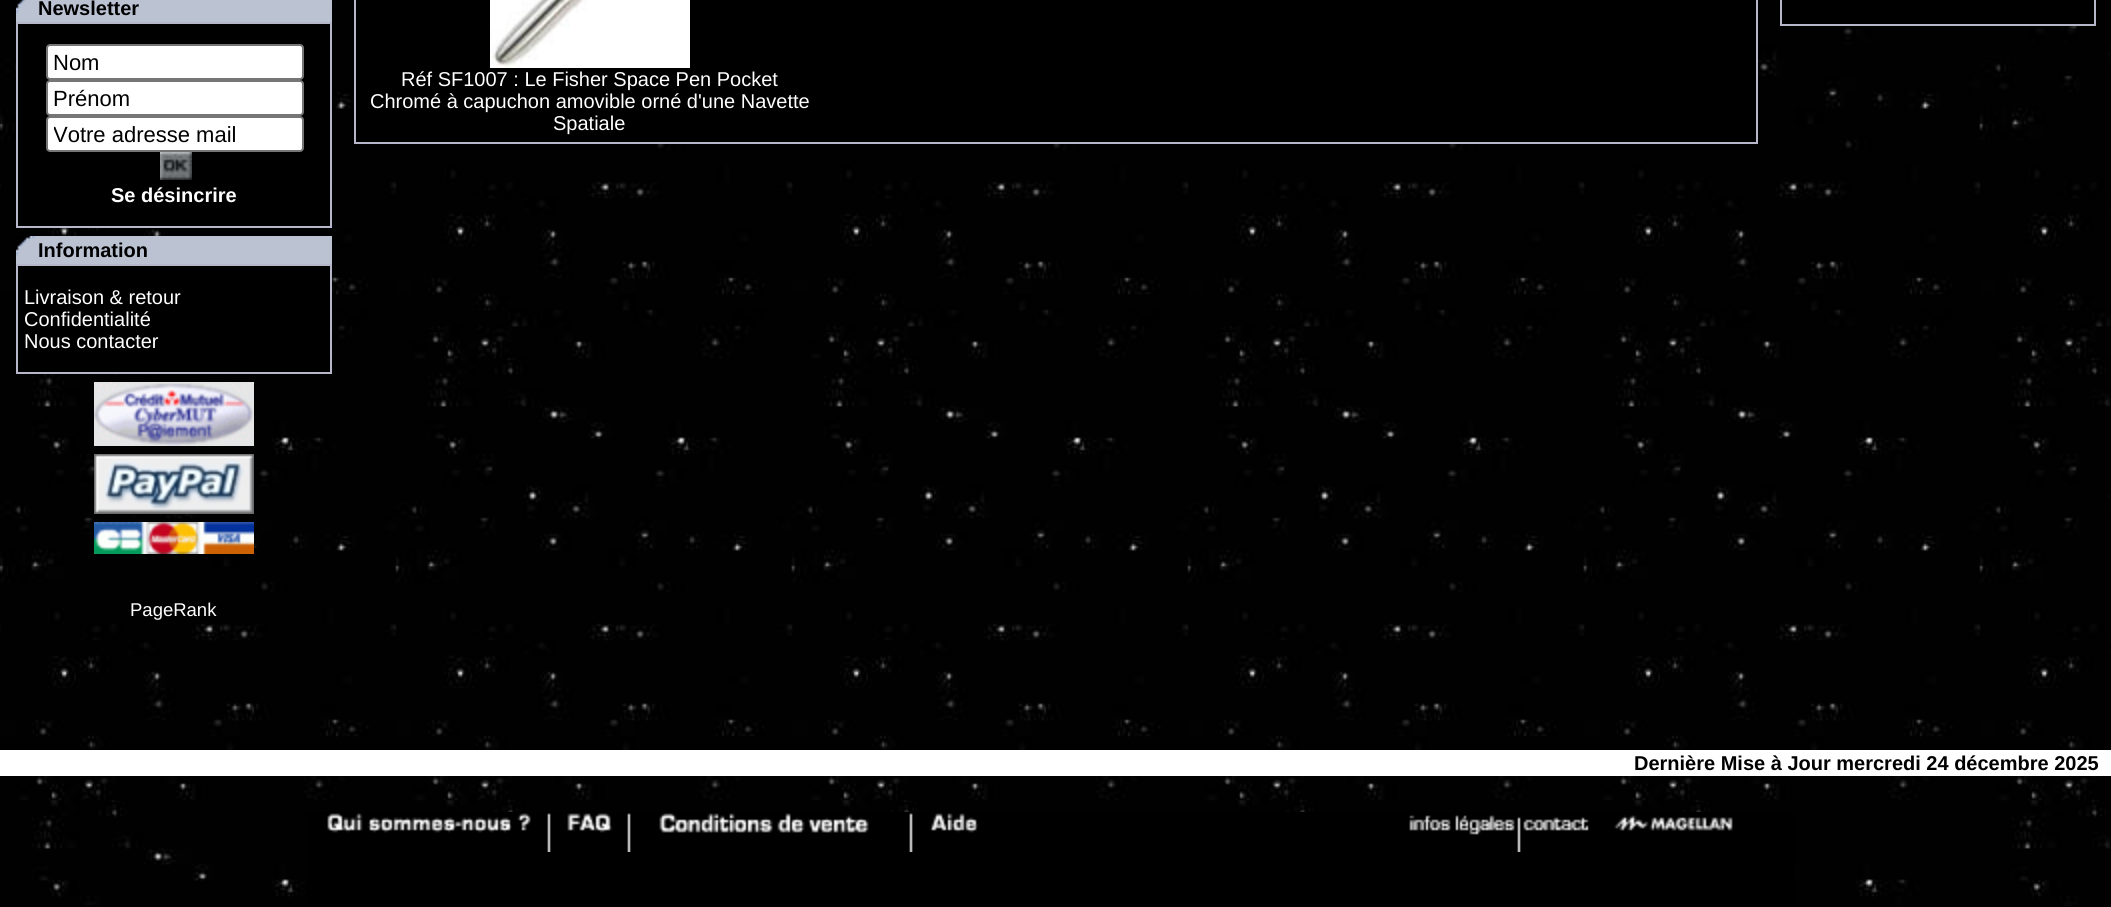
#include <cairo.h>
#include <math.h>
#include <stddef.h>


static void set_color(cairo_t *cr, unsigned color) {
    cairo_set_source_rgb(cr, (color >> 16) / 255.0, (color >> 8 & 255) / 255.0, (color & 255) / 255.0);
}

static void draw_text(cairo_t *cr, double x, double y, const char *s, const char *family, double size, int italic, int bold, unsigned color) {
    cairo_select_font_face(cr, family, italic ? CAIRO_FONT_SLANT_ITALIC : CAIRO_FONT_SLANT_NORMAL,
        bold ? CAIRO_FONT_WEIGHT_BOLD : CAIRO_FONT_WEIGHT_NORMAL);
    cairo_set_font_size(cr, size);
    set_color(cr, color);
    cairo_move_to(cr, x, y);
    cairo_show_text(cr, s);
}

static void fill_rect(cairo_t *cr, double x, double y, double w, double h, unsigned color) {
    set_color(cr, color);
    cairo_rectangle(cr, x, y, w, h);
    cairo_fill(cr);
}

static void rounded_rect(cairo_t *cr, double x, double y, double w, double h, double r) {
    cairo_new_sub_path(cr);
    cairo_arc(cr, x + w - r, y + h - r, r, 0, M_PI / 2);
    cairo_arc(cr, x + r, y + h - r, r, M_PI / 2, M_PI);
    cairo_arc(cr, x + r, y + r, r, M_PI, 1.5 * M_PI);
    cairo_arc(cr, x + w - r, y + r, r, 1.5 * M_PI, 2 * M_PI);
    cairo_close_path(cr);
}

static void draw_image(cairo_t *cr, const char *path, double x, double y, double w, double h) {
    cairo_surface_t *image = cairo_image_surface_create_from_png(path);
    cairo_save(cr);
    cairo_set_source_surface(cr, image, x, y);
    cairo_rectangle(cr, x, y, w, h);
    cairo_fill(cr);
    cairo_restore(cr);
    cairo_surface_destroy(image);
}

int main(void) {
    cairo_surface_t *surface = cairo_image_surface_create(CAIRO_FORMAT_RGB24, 2111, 907);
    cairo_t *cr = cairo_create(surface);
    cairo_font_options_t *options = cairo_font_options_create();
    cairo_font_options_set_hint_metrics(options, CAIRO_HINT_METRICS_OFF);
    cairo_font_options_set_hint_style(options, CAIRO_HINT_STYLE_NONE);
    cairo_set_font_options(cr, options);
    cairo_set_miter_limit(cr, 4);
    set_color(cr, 0x000000);
    cairo_paint(cr);
    draw_image(cr, "assets/img1.png", 0, 0, 2111, 906);
    fill_rect(cr, 16, 0, 316, 22, 0xBBC3D3);
    draw_image(cr, "assets/img2.png", 16, 0, 10, 14);
    draw_text(cr, 38, 15, "Newsletter", "Liberation Sans", 20, 0, 1, 0x000000);
    fill_rect(cr, 16, 22, 316, 206, 0xB6B7CB);
    fill_rect(cr, 18, 24, 312, 202, 0x000000);
    set_color(cr, 0xFFFFFF);
    rounded_rect(cr, 47, 45, 256, 34, 3);
    cairo_fill_preserve(cr);
    set_color(cr, 0x767676);
    cairo_stroke(cr);
    draw_text(cr, 53, 70, "Nom", "Liberation Sans", 22, 0, 0, 0x000000);
    set_color(cr, 0xFFFFFF);
    rounded_rect(cr, 47, 81, 256, 34, 3);
    cairo_fill_preserve(cr);
    set_color(cr, 0x767676);
    cairo_stroke(cr);
    draw_text(cr, 53, 106, "Prénom", "Liberation Sans", 22, 0, 0, 0x000000);
    set_color(cr, 0xFFFFFF);
    rounded_rect(cr, 47, 117, 256, 34, 3);
    cairo_fill_preserve(cr);
    set_color(cr, 0x767676);
    cairo_stroke(cr);
    cairo_save(cr);
    cairo_rectangle(cr, 54, 122, 242, 24);
    cairo_clip(cr);
    draw_text(cr, 53, 142, "Votre adresse mail", "Liberation Sans", 22, 0, 0, 0x000000);
    cairo_restore(cr);
    draw_image(cr, "assets/img3.png", 160, 152, 32, 28);
    draw_text(cr, 111, 202, "Se désincrire", "Liberation Sans", 20, 0, 1, 0xFFFFFF);
    fill_rect(cr, 16, 236, 316, 28, 0xBBC3D3);
    draw_image(cr, "assets/img4.png", 16, 236, 20, 20);
    draw_text(cr, 38, 257, "Information", "Liberation Sans", 20, 0, 1, 0x000000);
    fill_rect(cr, 16, 264, 316, 110, 0xB6B7CB);
    fill_rect(cr, 18, 266, 312, 106, 0x000000);
    draw_text(cr, 24, 304, "Livraison & retour", "Liberation Sans", 20, 0, 0, 0xFFFFFF);
    draw_text(cr, 24, 326, "Confidentialité", "Liberation Sans", 20, 0, 0, 0xFFFFFF);
    draw_text(cr, 24, 348, "Nous contacter", "Liberation Sans", 20, 0, 0, 0xFFFFFF);
    draw_image(cr, "assets/img5.png", 94, 382, 160, 64);
    draw_image(cr, "assets/img6.png", 94, 454, 160, 60);
    draw_image(cr, "assets/img7.png", 94, 522, 160, 32);
    draw_text(cr, 130, 616, "PageRank", "Liberation Sans", 18.5, 0, 0, 0xFFFFFF);
    fill_rect(cr, 1780, 0, 316, 26, 0xB6B7CB);
    fill_rect(cr, 1782, 0, 312, 24, 0x000000);
    fill_rect(cr, 354, 0, 1404, 144, 0xB6B7CB);
    fill_rect(cr, 356, 0, 1400, 142, 0x000000);
    draw_image(cr, "assets/img8.png", 490, 0, 200, 68);
    draw_text(cr, 401, 86, "Réf SF1007 : Le Fisher Space Pen Pocket", "Liberation Sans", 20, 0, 0, 0xFFFFFF);
    draw_text(cr, 370, 108, "Chromé à capuchon amovible orné d'une Navette", "Liberation Sans", 20, 0, 0, 0xFFFFFF);
    draw_text(cr, 553, 130, "Spatiale", "Liberation Sans", 20, 0, 0, 0xFFFFFF);
    fill_rect(cr, 0, 750, 2111, 26, 0xFFFFFF);
    draw_text(cr, 1634, 770, "Dernière Mise à Jour mercredi 24 décembre 2025", "Liberation Sans", 20, 0, 1, 0x000000);
    fill_rect(cr, 306, 812, 1489, 94, 0x000000);
    draw_image(cr, "assets/img9.png", 327, 813, 1406, 39);
    cairo_surface_write_to_png(surface, "output.png");
    cairo_font_options_destroy(options);
    cairo_destroy(cr);
    cairo_surface_destroy(surface);
    return 0;
}
